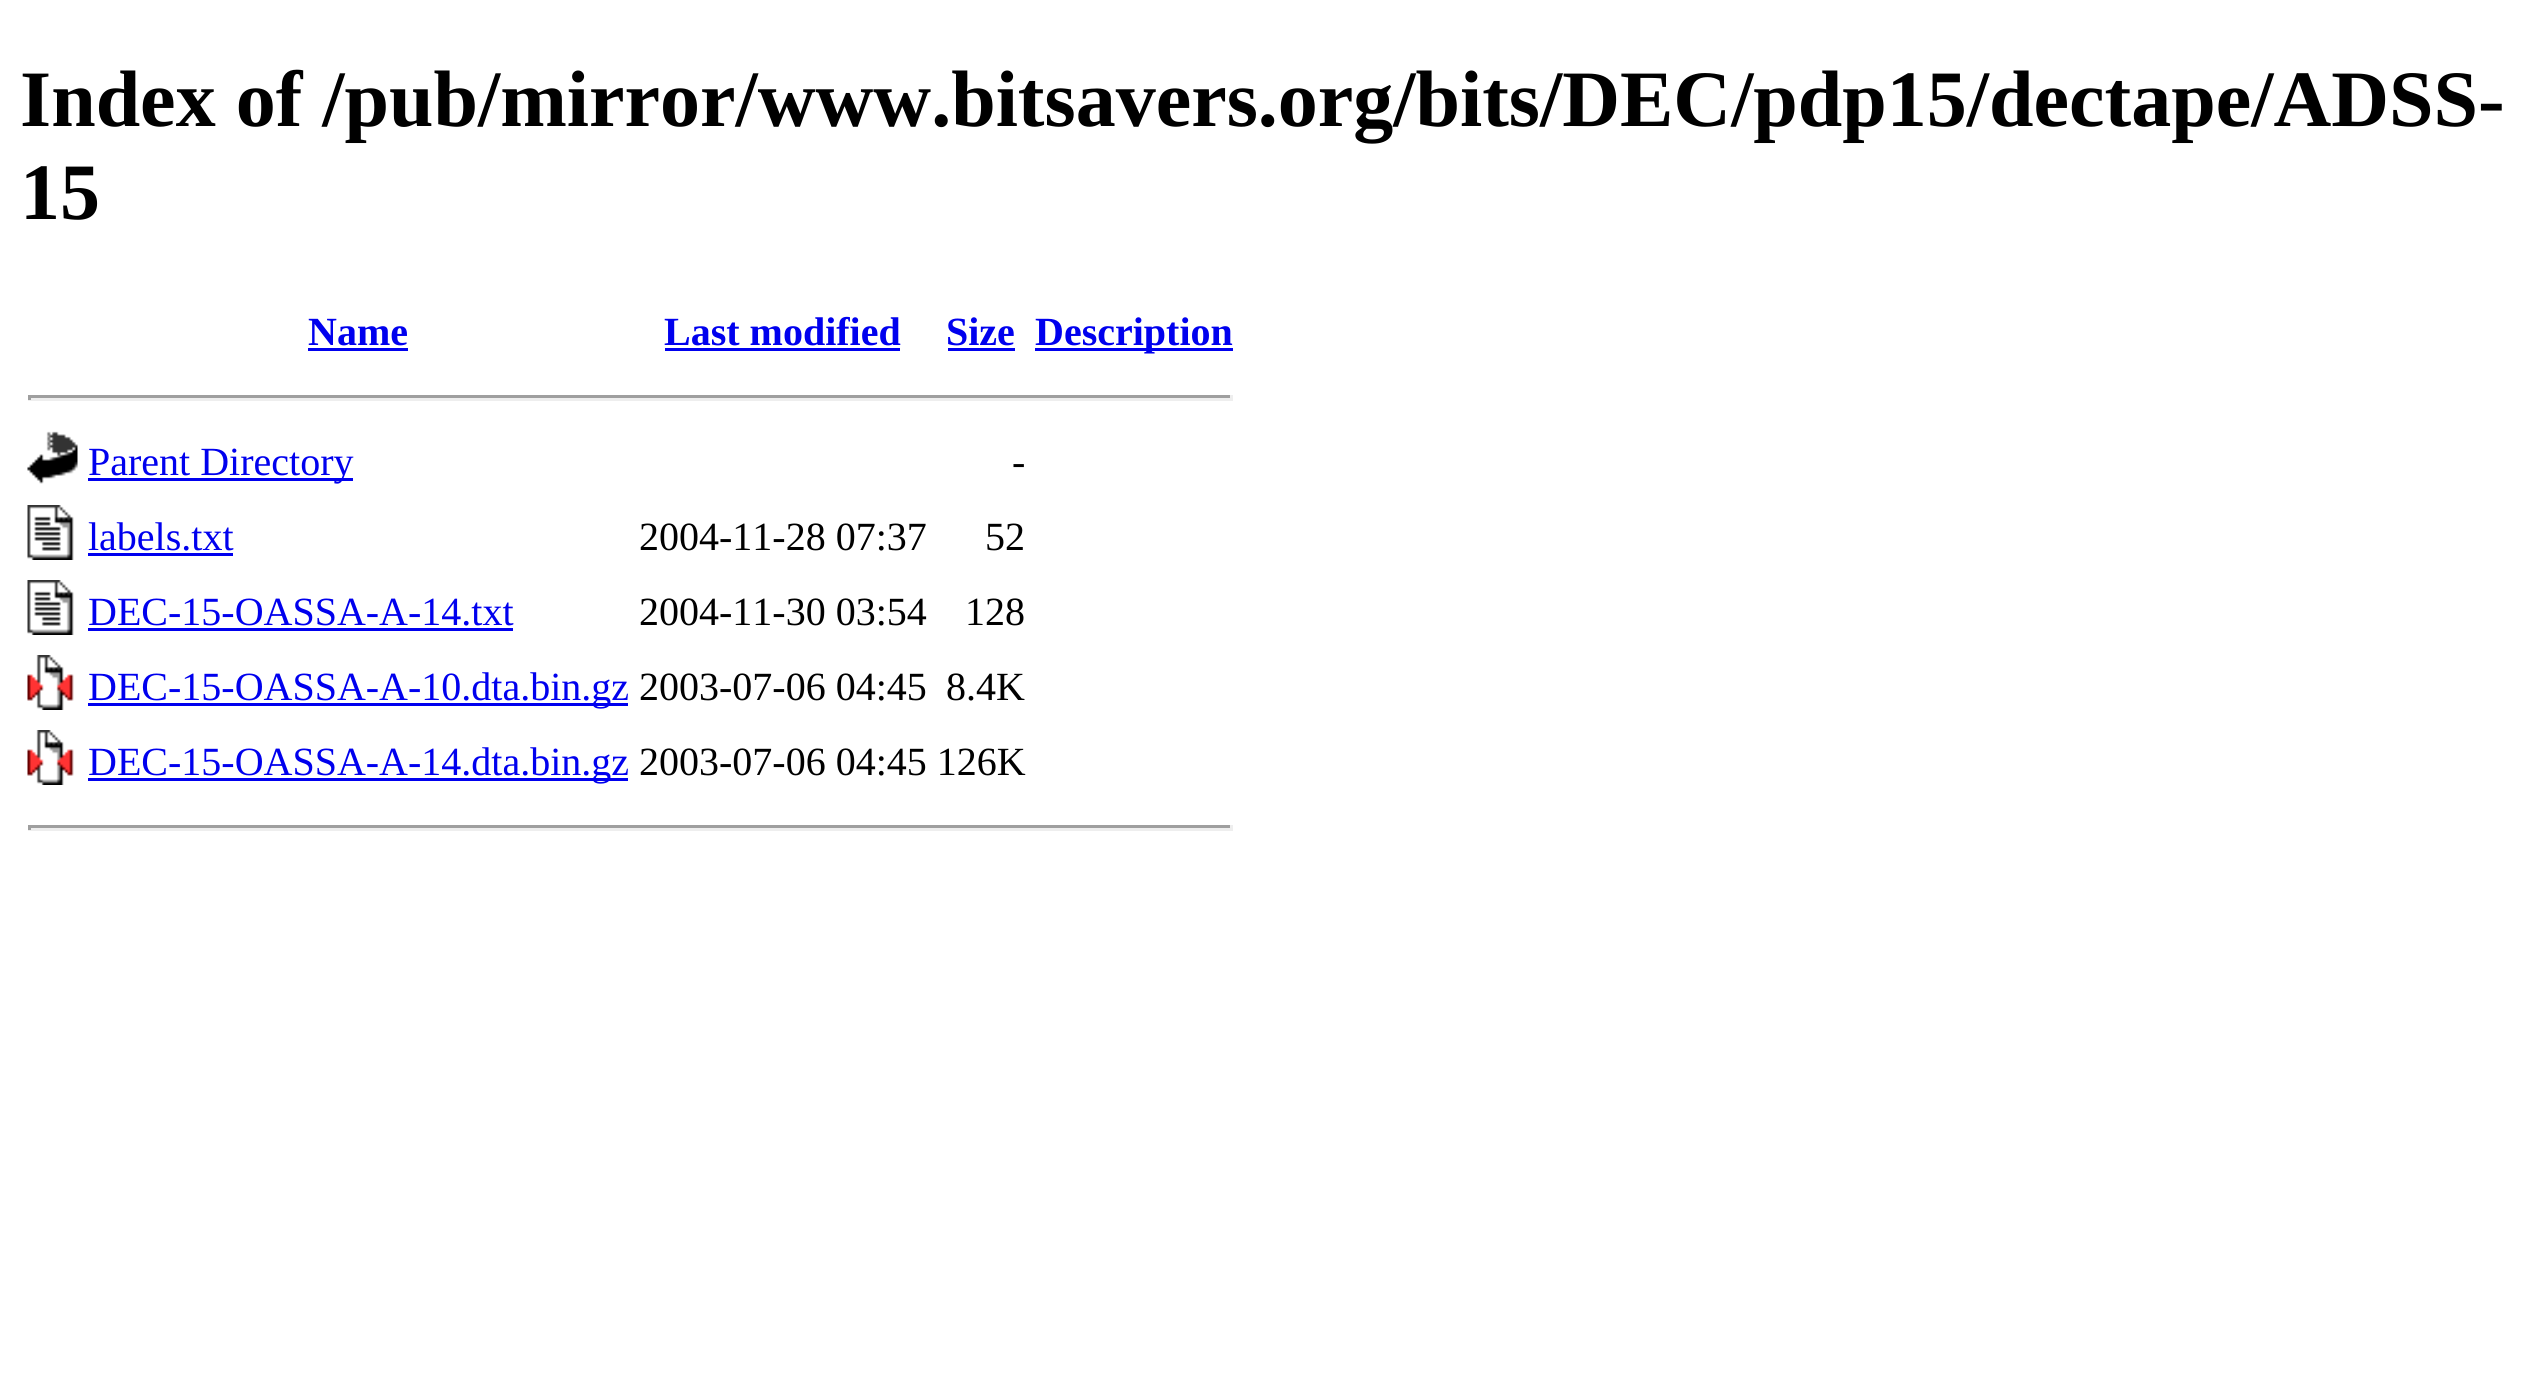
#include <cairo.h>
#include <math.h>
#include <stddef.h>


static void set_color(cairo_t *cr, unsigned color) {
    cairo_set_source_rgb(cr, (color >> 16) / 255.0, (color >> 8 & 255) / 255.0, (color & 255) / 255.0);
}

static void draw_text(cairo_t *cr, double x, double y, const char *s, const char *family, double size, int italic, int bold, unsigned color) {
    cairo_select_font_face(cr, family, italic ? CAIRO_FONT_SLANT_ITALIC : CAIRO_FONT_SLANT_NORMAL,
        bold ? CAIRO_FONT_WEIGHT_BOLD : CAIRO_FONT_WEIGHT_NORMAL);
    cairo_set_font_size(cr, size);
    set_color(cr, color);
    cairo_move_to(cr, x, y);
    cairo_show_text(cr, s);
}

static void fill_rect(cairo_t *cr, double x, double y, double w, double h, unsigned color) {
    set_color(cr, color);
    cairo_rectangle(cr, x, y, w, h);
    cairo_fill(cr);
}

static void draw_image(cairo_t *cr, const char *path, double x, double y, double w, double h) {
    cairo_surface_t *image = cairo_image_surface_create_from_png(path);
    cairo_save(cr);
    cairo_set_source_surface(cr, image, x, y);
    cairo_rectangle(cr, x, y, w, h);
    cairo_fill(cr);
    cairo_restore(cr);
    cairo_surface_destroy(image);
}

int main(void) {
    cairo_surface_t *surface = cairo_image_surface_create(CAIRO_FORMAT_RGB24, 2542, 1380);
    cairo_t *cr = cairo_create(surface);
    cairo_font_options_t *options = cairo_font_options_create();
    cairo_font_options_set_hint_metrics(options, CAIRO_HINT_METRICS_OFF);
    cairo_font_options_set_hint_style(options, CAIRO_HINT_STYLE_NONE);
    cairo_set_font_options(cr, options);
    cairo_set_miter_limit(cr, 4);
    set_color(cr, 0xFFFFFF);
    cairo_paint(cr);
    draw_text(cr, 20, 126, "Index of /pub/mirror/www.bitsavers.org/bits/DEC/pdp15/dectape/ADSS-", "Liberation Serif", 80, 0, 1, 0x000000);
    draw_text(cr, 20, 219, "15", "Liberation Serif", 80, 0, 1, 0x000000);
    draw_text(cr, 308, 345, "Name", "Liberation Serif", 40, 0, 1, 0x0000EE);
    fill_rect(cr, 308, 348, 100, 3, 0x0000EE);
    draw_text(cr, 664, 345, "Last modified", "Liberation Serif", 40, 0, 1, 0x0000EE);
    fill_rect(cr, 665, 348, 235, 3, 0x0000EE);
    draw_text(cr, 946, 345, "Size", "Liberation Serif", 40, 0, 1, 0x0000EE);
    fill_rect(cr, 948, 348, 67, 3, 0x0000EE);
    fill_rect(cr, 1035, 348, 198, 3, 0x0000EE);
    draw_text(cr, 1035, 345, "Description", "Liberation Serif", 40, 0, 1, 0x0000EE);
    fill_rect(cr, 28, 395, 1205, 3, 0x9F9F9F);
    fill_rect(cr, 1230, 395, 3, 5, 0xEEEEEE);
    fill_rect(cr, 28, 398, 1205, 3, 0xEEEEEE);
    fill_rect(cr, 28, 395, 3, 5, 0x9F9F9F);
    draw_image(cr, "assets/img1.png", 27, 431, 51, 53);
    fill_rect(cr, 88, 478, 265, 3, 0x0000EE);
    draw_text(cr, 88, 475, "Parent Directory", "Liberation Serif", 40, 0, 0, 0x0000EE);
    draw_text(cr, 1012, 475, "-", "Liberation Serif", 40, 0, 0, 0x000000);
    draw_image(cr, "assets/img2.png", 27, 505, 47, 55);
    draw_text(cr, 88, 550, "labels.txt", "Liberation Serif", 40, 0, 0, 0x0000EE);
    fill_rect(cr, 88, 553, 145, 3, 0x0000EE);
    draw_text(cr, 639, 550, "2004-11-28 07:37", "Liberation Serif", 40, 0, 0, 0x000000);
    draw_text(cr, 985, 550, "52", "Liberation Serif", 40, 0, 0, 0x000000);
    draw_image(cr, "assets/img3.png", 27, 580, 47, 55);
    draw_text(cr, 88, 625, "DEC-15-OASSA-A-14.txt", "Liberation Serif", 40, 0, 0, 0x0000EE);
    fill_rect(cr, 88, 628, 425, 3, 0x0000EE);
    draw_text(cr, 639, 625, "2004-11-30 03:54", "Liberation Serif", 40, 0, 0, 0x000000);
    draw_text(cr, 965, 625, "128", "Liberation Serif", 40, 0, 0, 0x000000);
    draw_image(cr, "assets/img4.png", 27, 655, 47, 55);
    fill_rect(cr, 88, 703, 540, 3, 0x0000EE);
    draw_text(cr, 88, 700, "DEC-15-OASSA-A-10.dta.bin.gz", "Liberation Serif", 40, 0, 0, 0x0000EE);
    draw_text(cr, 639, 700, "2003-07-06 04:45", "Liberation Serif", 40, 0, 0, 0x000000);
    draw_text(cr, 946, 700, "8.4K", "Liberation Serif", 40, 0, 0, 0x000000);
    draw_image(cr, "assets/img4.png", 27, 730, 47, 55);
    fill_rect(cr, 88, 778, 540, 3, 0x0000EE);
    draw_text(cr, 88, 775, "DEC-15-OASSA-A-14.dta.bin.gz", "Liberation Serif", 40, 0, 0, 0x0000EE);
    draw_text(cr, 639, 775, "2003-07-06 04:45 126K", "Liberation Serif", 40, 0, 0, 0x000000);
    fill_rect(cr, 28, 825, 1205, 3, 0x9F9F9F);
    fill_rect(cr, 1230, 825, 3, 5, 0xEEEEEE);
    fill_rect(cr, 28, 828, 1205, 3, 0xEEEEEE);
    fill_rect(cr, 28, 825, 3, 5, 0x9F9F9F);
    cairo_surface_write_to_png(surface, "output.png");
    cairo_font_options_destroy(options);
    cairo_destroy(cr);
    cairo_surface_destroy(surface);
    return 0;
}
